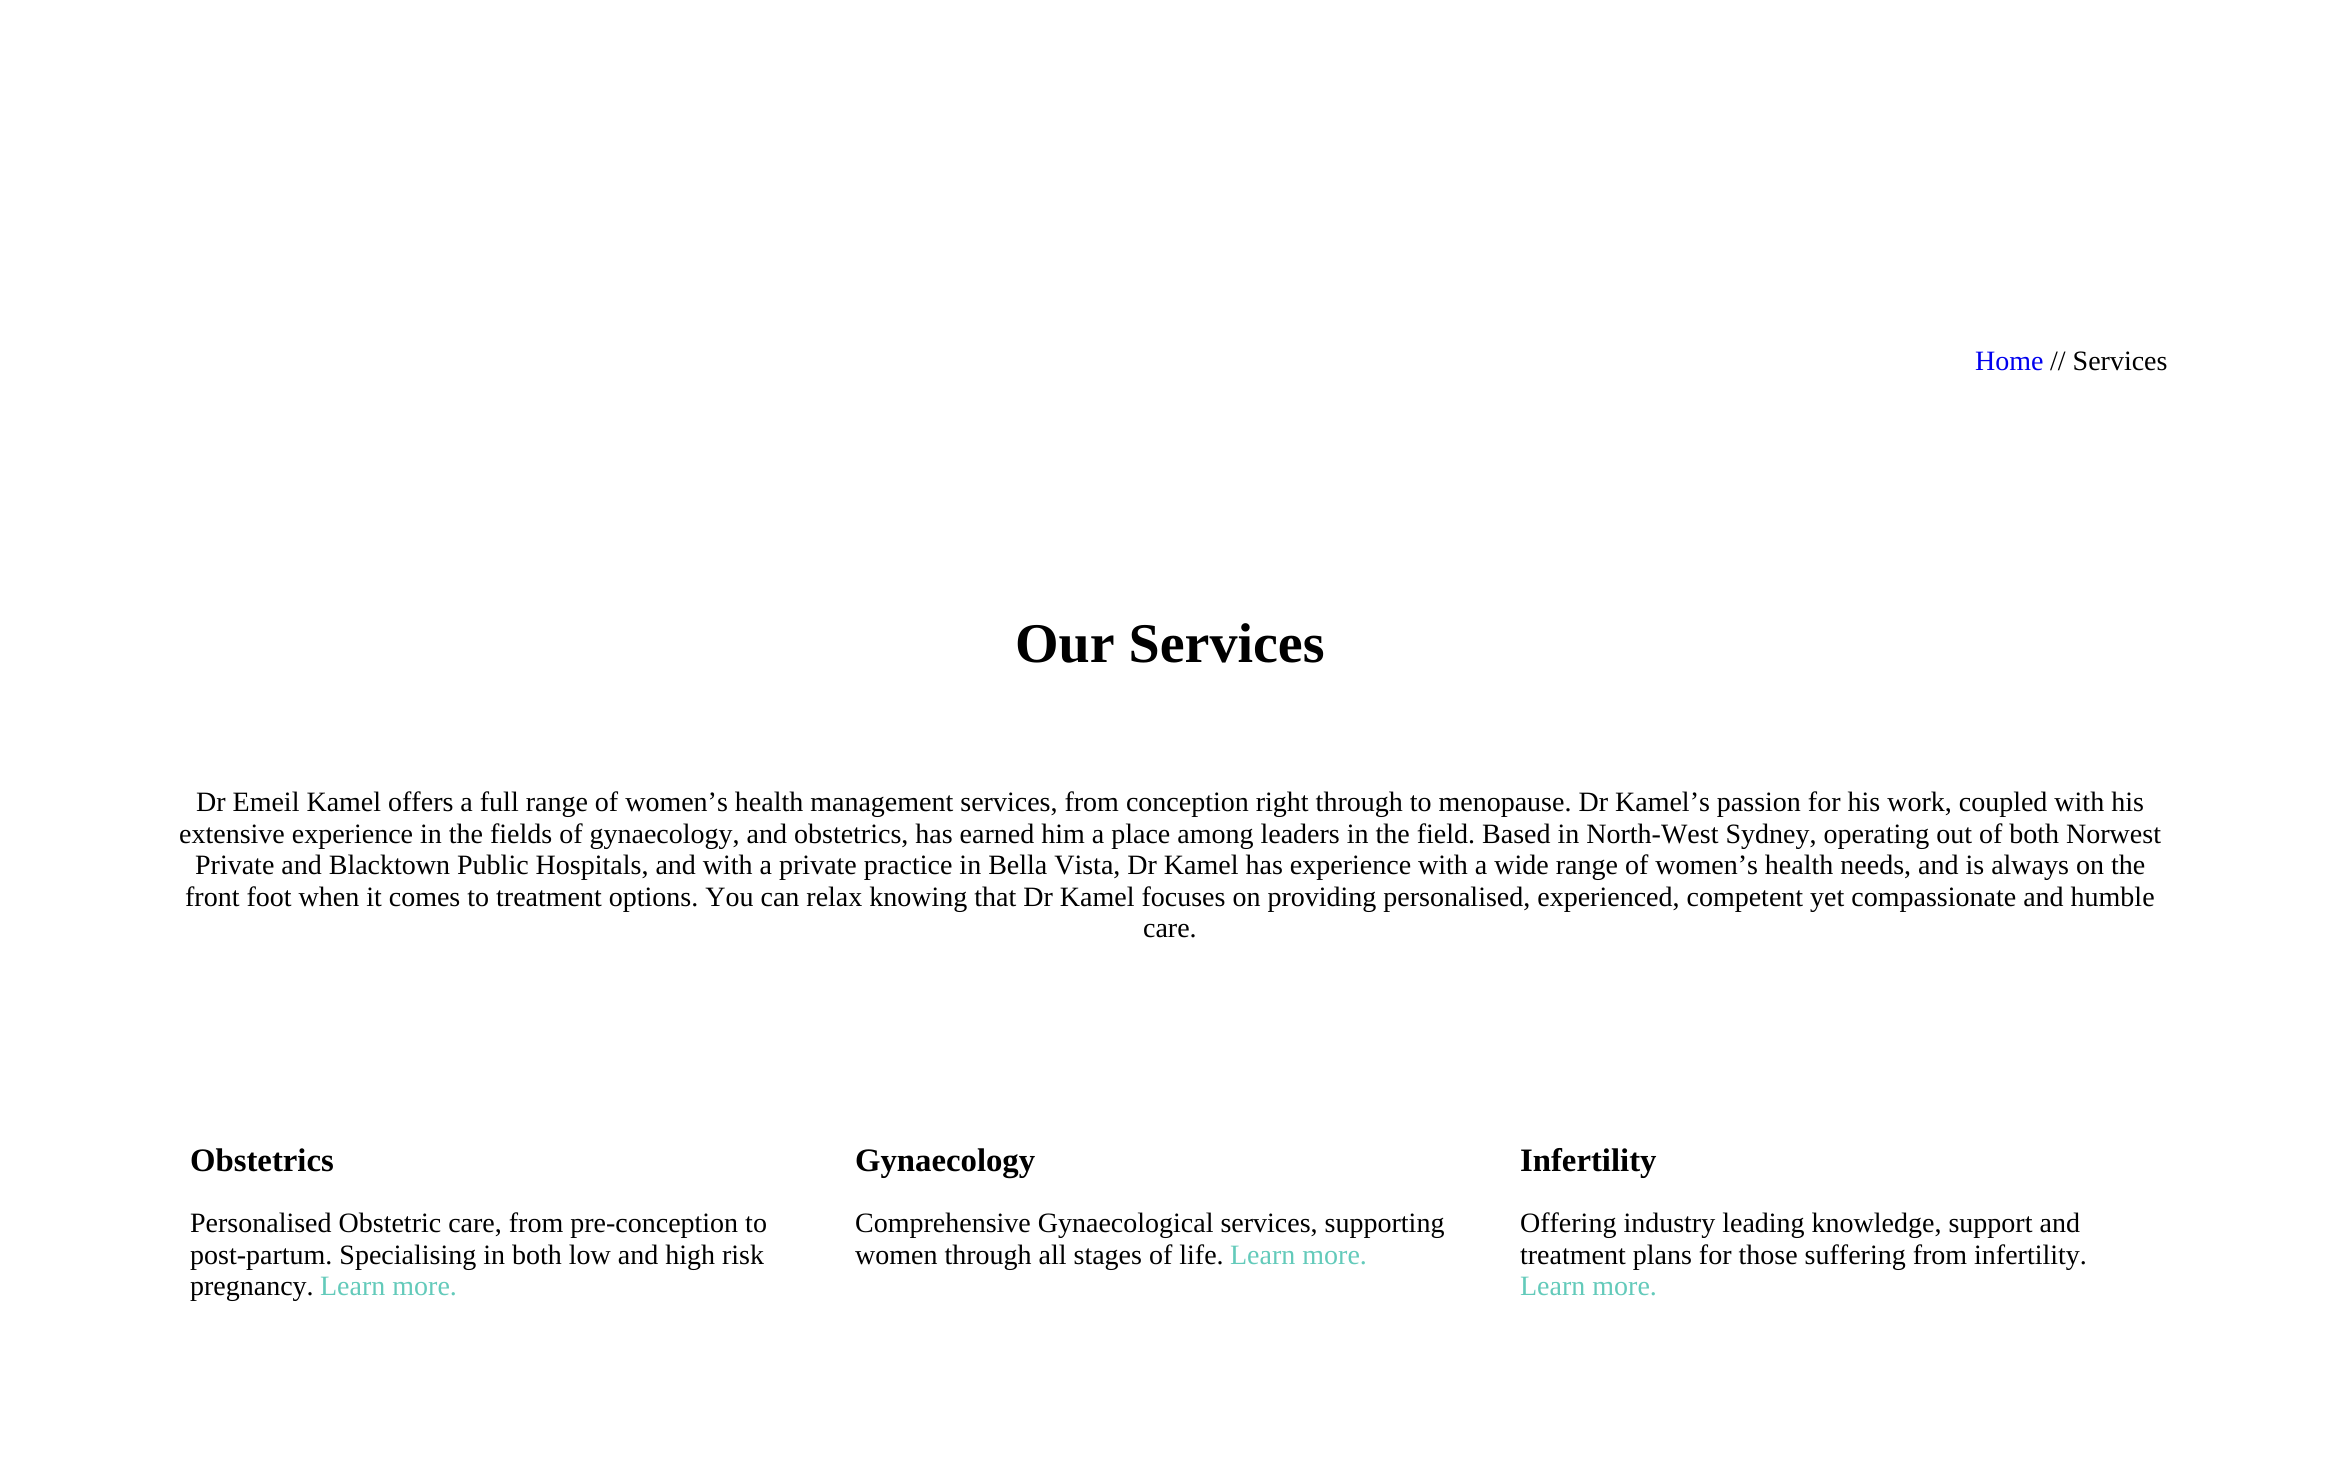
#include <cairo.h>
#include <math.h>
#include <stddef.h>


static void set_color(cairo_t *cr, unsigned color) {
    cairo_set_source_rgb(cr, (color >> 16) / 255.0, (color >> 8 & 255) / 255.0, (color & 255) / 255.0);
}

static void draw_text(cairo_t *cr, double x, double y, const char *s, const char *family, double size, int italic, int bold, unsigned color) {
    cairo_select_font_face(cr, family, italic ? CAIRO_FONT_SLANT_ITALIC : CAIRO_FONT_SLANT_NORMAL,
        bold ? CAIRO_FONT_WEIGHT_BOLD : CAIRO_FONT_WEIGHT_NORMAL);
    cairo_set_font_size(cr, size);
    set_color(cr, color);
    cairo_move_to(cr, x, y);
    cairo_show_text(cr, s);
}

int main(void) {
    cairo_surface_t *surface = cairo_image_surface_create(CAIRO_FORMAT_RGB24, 2339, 1466);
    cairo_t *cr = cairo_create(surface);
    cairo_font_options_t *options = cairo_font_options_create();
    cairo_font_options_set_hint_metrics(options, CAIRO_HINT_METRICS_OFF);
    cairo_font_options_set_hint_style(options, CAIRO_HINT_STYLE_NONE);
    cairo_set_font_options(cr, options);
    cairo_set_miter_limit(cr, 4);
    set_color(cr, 0xFFFFFF);
    cairo_paint(cr);
    draw_text(cr, 1975, 370, "Home", "Liberation Serif", 28, 0, 0, 0x0000EE);
    draw_text(cr, 2050, 370, "// Services", "Liberation Serif", 28, 0, 0, 0x000000);
    draw_text(cr, 1015, 662, "Our Services", "Liberation Serif", 56, 0, 1, 0x000000);
    draw_text(cr, 196, 811, "Dr Emeil Kamel offers a full range of women’s health management services, from conception right through to menopause. Dr Kamel’s passion for his work, coupled with his", "Liberation Serif", 28, 0, 0, 0x000000);
    draw_text(cr, 179, 843, "extensive experience in the fields of gynaecology, and obstetrics, has earned him a place among leaders in the field. Based in North-West Sydney, operating out of both Norwest", "Liberation Serif", 28, 0, 0, 0x000000);
    draw_text(cr, 195, 874, "Private and Blacktown Public Hospitals, and with a private practice in Bella Vista, Dr Kamel has experience with a wide range of women’s health needs, and is always on the", "Liberation Serif", 28, 0, 0, 0x000000);
    draw_text(cr, 185, 906, "front foot when it comes to treatment options. You can relax knowing that Dr Kamel focuses on providing personalised, experienced, competent yet compassionate and humble", "Liberation Serif", 28, 0, 0, 0x000000);
    draw_text(cr, 1143, 937, "care.", "Liberation Serif", 28, 0, 0, 0x000000);
    draw_text(cr, 190, 1171, "Obstetrics", "Liberation Serif", 32.75, 0, 1, 0x000000);
    draw_text(cr, 190, 1232, "Personalised Obstetric care, from pre-conception to", "Liberation Serif", 28, 0, 0, 0x000000);
    draw_text(cr, 190, 1264, "post-partum. Specialising in both low and high risk", "Liberation Serif", 28, 0, 0, 0x000000);
    draw_text(cr, 190, 1295, "pregnancy.", "Liberation Serif", 28, 0, 0, 0x000000);
    draw_text(cr, 320, 1295, "Learn more.", "Liberation Serif", 28, 0, 0, 0x63CABA);
    draw_text(cr, 855, 1171, "Gynaecology", "Liberation Serif", 32.75, 0, 1, 0x000000);
    draw_text(cr, 855, 1232, "Comprehensive Gynaecological services, supporting", "Liberation Serif", 28, 0, 0, 0x000000);
    draw_text(cr, 855, 1264, "women through all stages of life.", "Liberation Serif", 28, 0, 0, 0x000000);
    draw_text(cr, 1230, 1264, "Learn more.", "Liberation Serif", 28, 0, 0, 0x63CABA);
    draw_text(cr, 1520, 1171, "Infertility", "Liberation Serif", 32.75, 0, 1, 0x000000);
    draw_text(cr, 1520, 1232, "Offering industry leading knowledge, support and", "Liberation Serif", 28, 0, 0, 0x000000);
    draw_text(cr, 1520, 1264, "treatment plans for those suffering from infertility.", "Liberation Serif", 28, 0, 0, 0x000000);
    draw_text(cr, 1520, 1295, "Learn more.", "Liberation Serif", 28, 0, 0, 0x63CABA);
    cairo_surface_write_to_png(surface, "output.png");
    cairo_font_options_destroy(options);
    cairo_destroy(cr);
    cairo_surface_destroy(surface);
    return 0;
}
